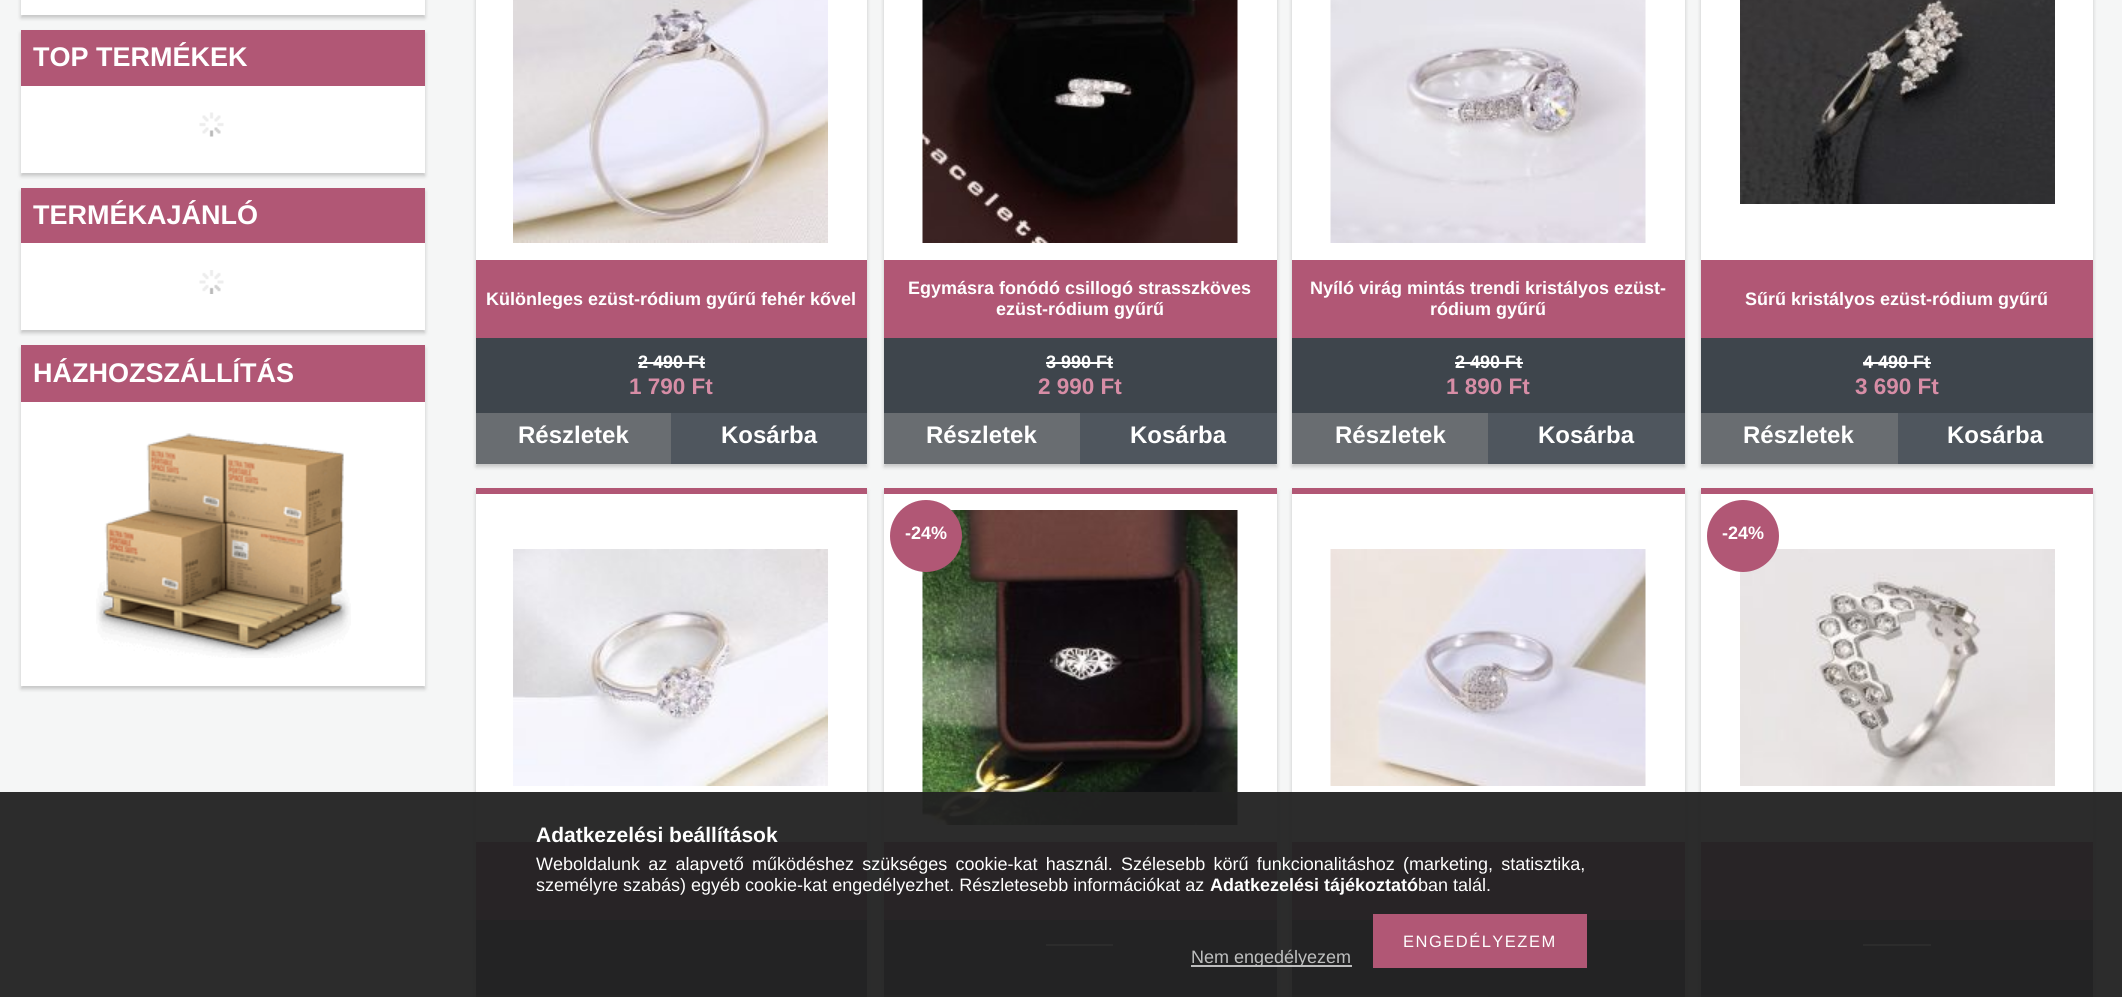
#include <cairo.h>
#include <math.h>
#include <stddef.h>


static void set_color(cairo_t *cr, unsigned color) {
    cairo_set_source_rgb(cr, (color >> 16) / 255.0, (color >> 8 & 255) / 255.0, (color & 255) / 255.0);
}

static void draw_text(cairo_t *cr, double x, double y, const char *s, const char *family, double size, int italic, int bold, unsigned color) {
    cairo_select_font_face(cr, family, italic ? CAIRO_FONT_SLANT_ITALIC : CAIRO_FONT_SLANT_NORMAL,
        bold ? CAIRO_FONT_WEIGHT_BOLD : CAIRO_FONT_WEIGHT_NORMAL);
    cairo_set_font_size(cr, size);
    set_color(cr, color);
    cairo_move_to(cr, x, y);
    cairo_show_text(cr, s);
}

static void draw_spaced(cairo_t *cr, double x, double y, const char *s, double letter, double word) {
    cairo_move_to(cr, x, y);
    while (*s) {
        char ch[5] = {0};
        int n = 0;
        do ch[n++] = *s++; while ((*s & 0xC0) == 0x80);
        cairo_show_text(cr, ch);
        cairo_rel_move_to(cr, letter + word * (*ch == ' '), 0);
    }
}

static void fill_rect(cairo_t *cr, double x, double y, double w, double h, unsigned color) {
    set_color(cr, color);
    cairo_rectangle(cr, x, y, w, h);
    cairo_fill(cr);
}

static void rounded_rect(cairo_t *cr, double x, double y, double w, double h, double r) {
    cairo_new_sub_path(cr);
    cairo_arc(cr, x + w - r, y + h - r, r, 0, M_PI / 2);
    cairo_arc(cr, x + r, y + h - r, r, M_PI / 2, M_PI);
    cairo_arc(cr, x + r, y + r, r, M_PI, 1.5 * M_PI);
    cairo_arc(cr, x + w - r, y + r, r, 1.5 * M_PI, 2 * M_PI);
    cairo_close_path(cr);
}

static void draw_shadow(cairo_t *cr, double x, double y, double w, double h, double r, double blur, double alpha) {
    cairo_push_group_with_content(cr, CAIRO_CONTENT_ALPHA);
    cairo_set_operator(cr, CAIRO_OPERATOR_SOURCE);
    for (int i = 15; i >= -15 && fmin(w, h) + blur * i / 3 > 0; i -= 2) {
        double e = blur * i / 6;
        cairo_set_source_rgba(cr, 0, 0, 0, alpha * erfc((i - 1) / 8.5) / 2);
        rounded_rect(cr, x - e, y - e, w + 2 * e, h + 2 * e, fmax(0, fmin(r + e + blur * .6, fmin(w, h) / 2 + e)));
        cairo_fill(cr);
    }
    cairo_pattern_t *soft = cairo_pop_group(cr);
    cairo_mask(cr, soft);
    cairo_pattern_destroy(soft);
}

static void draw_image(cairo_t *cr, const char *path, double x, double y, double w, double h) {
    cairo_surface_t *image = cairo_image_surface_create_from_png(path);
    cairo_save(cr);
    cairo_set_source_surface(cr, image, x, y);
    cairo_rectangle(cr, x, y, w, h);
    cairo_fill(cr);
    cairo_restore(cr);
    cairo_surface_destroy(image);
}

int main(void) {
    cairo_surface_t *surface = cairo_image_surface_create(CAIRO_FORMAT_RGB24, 2122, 997);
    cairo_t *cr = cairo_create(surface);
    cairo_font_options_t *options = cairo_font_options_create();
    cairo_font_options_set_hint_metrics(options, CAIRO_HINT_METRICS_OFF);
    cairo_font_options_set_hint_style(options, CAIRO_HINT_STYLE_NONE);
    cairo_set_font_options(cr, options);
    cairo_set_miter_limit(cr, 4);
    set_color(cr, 0xF5F6F6);
    cairo_paint(cr);
    set_color(cr, 0x000000);
    draw_shadow(cr, 21, -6, 404, 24, 0, 2, 0.2);
    fill_rect(cr, 21, 0, 404, 15, 0xFFFFFF);
    set_color(cr, 0x000000);
    draw_shadow(cr, 21, 33, 404, 143, 0, 2, 0.2);
    fill_rect(cr, 21, 30, 404, 56, 0xB15775);
    draw_text(cr, 33, 66, "TOP TERMÉKEK", "Liberation Sans", 27, 0, 1, 0xFFFFFF);
    fill_rect(cr, 21, 86, 404, 87, 0xFFFFFF);
    draw_image(cr, "assets/img1.png", 199, 112, 25, 25);
    set_color(cr, 0x000000);
    draw_shadow(cr, 21, 191, 404, 142, 0, 2, 0.2);
    fill_rect(cr, 21, 188, 404, 55, 0xB15775);
    draw_text(cr, 33, 224, "TERMÉKAJÁNLÓ", "Liberation Sans", 27, 0, 1, 0xFFFFFF);
    fill_rect(cr, 21, 243, 404, 87, 0xFFFFFF);
    draw_image(cr, "assets/img2.png", 199, 270, 25, 24);
    set_color(cr, 0x000000);
    draw_shadow(cr, 21, 348, 404, 341, 0, 2, 0.2);
    fill_rect(cr, 21, 345, 404, 57, 0xB15775);
    draw_text(cr, 33, 382, "HÁZHOZSZÁLLÍTÁS", "Liberation Sans", 27, 0, 1, 0xFFFFFF);
    fill_rect(cr, 21, 402, 404, 284, 0xFFFFFF);
    draw_image(cr, "assets/img3.png", 96, 433, 255, 225);
    set_color(cr, 0x000000);
    draw_shadow(cr, 476, -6, 391, 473, 0, 2, 0.2);
    fill_rect(cr, 476, 0, 391, 260, 0xFFFFFF);
    draw_image(cr, "assets/img4.png", 513, 0, 315, 243);
    fill_rect(cr, 476, 260, 391, 78, 0xB15775);
    draw_text(cr, 486, 305, "Különleges ezüst-ródium gyűrű fehér kővel", "Liberation Sans", 18, 0, 1, 0xFFFFFF);
    fill_rect(cr, 476, 338, 391, 75, 0x3E454C);
    draw_text(cr, 638, 368, "2 490 Ft", "Liberation Sans", 18, 0, 1, 0xFFFFFF);
    fill_rect(cr, 638, 362, 67, 2, 0xFFFFFF);
    draw_text(cr, 629, 394, "1 790 Ft", "Liberation Sans", 22.5, 0, 1, 0xD78DA6);
    fill_rect(cr, 476, 413, 195, 51, 0x696D71);
    draw_text(cr, 518, 443, "Részletek", "Liberation Sans", 24, 0, 1, 0xFFFFFF);
    fill_rect(cr, 671, 413, 196, 51, 0x4F565E);
    draw_text(cr, 721, 443, "Kosárba", "Liberation Sans", 24, 0, 1, 0xFFFFFF);
    set_color(cr, 0x000000);
    draw_shadow(cr, 884, -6, 393, 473, 0, 2, 0.2);
    fill_rect(cr, 884, 0, 393, 260, 0xFFFFFF);
    draw_image(cr, "assets/img5.png", 922, 0, 316, 243);
    fill_rect(cr, 884, 260, 393, 78, 0xB15775);
    draw_text(cr, 908, 294, "Egymásra fonódó csillogó strasszköves", "Liberation Sans", 18, 0, 1, 0xFFFFFF);
    draw_text(cr, 996, 315, "ezüst-ródium gyűrű", "Liberation Sans", 18, 0, 1, 0xFFFFFF);
    fill_rect(cr, 884, 338, 393, 75, 0x3E454C);
    draw_text(cr, 1046, 368, "3 990 Ft", "Liberation Sans", 18, 0, 1, 0xFFFFFF);
    fill_rect(cr, 1046, 362, 67, 2, 0xFFFFFF);
    draw_text(cr, 1038, 394, "2 990 Ft", "Liberation Sans", 22.5, 0, 1, 0xD78DA6);
    fill_rect(cr, 884, 413, 196, 51, 0x696D71);
    draw_text(cr, 926, 443, "Részletek", "Liberation Sans", 24, 0, 1, 0xFFFFFF);
    fill_rect(cr, 1080, 413, 197, 51, 0x4F565E);
    draw_text(cr, 1130, 443, "Kosárba", "Liberation Sans", 24, 0, 1, 0xFFFFFF);
    set_color(cr, 0x000000);
    draw_shadow(cr, 1292, -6, 393, 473, 0, 2, 0.2);
    fill_rect(cr, 1292, 0, 393, 260, 0xFFFFFF);
    draw_image(cr, "assets/img6.png", 1330, 0, 316, 243);
    fill_rect(cr, 1292, 260, 393, 78, 0xB15775);
    draw_text(cr, 1310, 294, "Nyíló virág mintás trendi kristályos ezüst-", "Liberation Sans", 18, 0, 1, 0xFFFFFF);
    draw_text(cr, 1430, 315, "ródium gyűrű", "Liberation Sans", 18, 0, 1, 0xFFFFFF);
    fill_rect(cr, 1292, 338, 393, 75, 0x3E454C);
    draw_text(cr, 1455, 368, "2 490 Ft", "Liberation Sans", 18, 0, 1, 0xFFFFFF);
    fill_rect(cr, 1455, 362, 68, 2, 0xFFFFFF);
    draw_text(cr, 1446, 394, "1 890 Ft", "Liberation Sans", 22.5, 0, 1, 0xD78DA6);
    fill_rect(cr, 1292, 413, 196, 51, 0x696D71);
    draw_text(cr, 1335, 443, "Részletek", "Liberation Sans", 24, 0, 1, 0xFFFFFF);
    fill_rect(cr, 1488, 413, 197, 51, 0x4F565E);
    draw_text(cr, 1538, 443, "Kosárba", "Liberation Sans", 24, 0, 1, 0xFFFFFF);
    set_color(cr, 0x000000);
    draw_shadow(cr, 1701, -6, 392, 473, 0, 2, 0.2);
    fill_rect(cr, 1701, 0, 392, 260, 0xFFFFFF);
    draw_image(cr, "assets/img7.png", 1740, 0, 315, 204);
    fill_rect(cr, 1701, 260, 392, 78, 0xB15775);
    draw_text(cr, 1745, 305, "Sűrű kristályos ezüst-ródium gyűrű", "Liberation Sans", 18, 0, 1, 0xFFFFFF);
    fill_rect(cr, 1701, 338, 392, 75, 0x3E454C);
    draw_text(cr, 1863, 368, "4 490 Ft", "Liberation Sans", 18, 0, 1, 0xFFFFFF);
    fill_rect(cr, 1863, 362, 68, 2, 0xFFFFFF);
    draw_text(cr, 1855, 394, "3 690 Ft", "Liberation Sans", 22.5, 0, 1, 0xD78DA6);
    fill_rect(cr, 1701, 413, 197, 51, 0x696D71);
    draw_text(cr, 1743, 443, "Részletek", "Liberation Sans", 24, 0, 1, 0xFFFFFF);
    fill_rect(cr, 1898, 413, 195, 51, 0x4F565E);
    draw_text(cr, 1947, 443, "Kosárba", "Liberation Sans", 24, 0, 1, 0xFFFFFF);
    set_color(cr, 0x000000);
    draw_shadow(cr, 476, 491, 391, 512, 0, 2, 0.2);
    fill_rect(cr, 476, 488, 391, 6, 0xB15775);
    fill_rect(cr, 476, 494, 391, 348, 0xFFFFFF);
    draw_image(cr, "assets/img8.png", 513, 549, 315, 237);
    fill_rect(cr, 476, 842, 391, 78, 0xB15775);
    fill_rect(cr, 476, 920, 391, 75, 0x3E454C);
    fill_rect(cr, 476, 995, 195, 2, 0x696D71);
    fill_rect(cr, 671, 995, 196, 2, 0x4F565E);
    set_color(cr, 0x000000);
    draw_shadow(cr, 884, 491, 393, 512, 0, 2, 0.2);
    fill_rect(cr, 884, 488, 393, 6, 0xB15775);
    fill_rect(cr, 884, 494, 393, 348, 0xFFFFFF);
    draw_image(cr, "assets/img9.png", 922, 510, 316, 315);
    fill_rect(cr, 884, 842, 393, 78, 0xB15775);
    fill_rect(cr, 884, 920, 393, 75, 0x3E454C);
    fill_rect(cr, 1046, 944, 67, 2, 0xFFFFFF);
    fill_rect(cr, 884, 995, 196, 2, 0x696D71);
    fill_rect(cr, 1080, 995, 197, 2, 0x4F565E);
    set_color(cr, 0xB15775);
    cairo_arc(cr, 926, 536, 36, 0, 2 * M_PI);
    cairo_fill(cr);
    draw_text(cr, 905, 539, "-24%", "Liberation Sans", 18, 0, 1, 0xFFFFFF);
    set_color(cr, 0x000000);
    draw_shadow(cr, 1292, 491, 393, 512, 0, 2, 0.2);
    fill_rect(cr, 1292, 488, 393, 6, 0xB15775);
    fill_rect(cr, 1292, 494, 393, 348, 0xFFFFFF);
    draw_image(cr, "assets/img10.png", 1330, 549, 316, 237);
    fill_rect(cr, 1292, 842, 393, 78, 0xB15775);
    fill_rect(cr, 1292, 920, 393, 75, 0x3E454C);
    fill_rect(cr, 1292, 995, 196, 2, 0x696D71);
    fill_rect(cr, 1488, 995, 197, 2, 0x4F565E);
    set_color(cr, 0x000000);
    draw_shadow(cr, 1701, 491, 392, 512, 0, 2, 0.2);
    fill_rect(cr, 1701, 488, 392, 6, 0xB15775);
    fill_rect(cr, 1701, 494, 392, 348, 0xFFFFFF);
    draw_image(cr, "assets/img11.png", 1740, 549, 315, 237);
    fill_rect(cr, 1701, 842, 392, 78, 0xB15775);
    fill_rect(cr, 1701, 920, 392, 75, 0x3E454C);
    fill_rect(cr, 1863, 944, 68, 2, 0xFFFFFF);
    fill_rect(cr, 1701, 995, 197, 2, 0x696D71);
    fill_rect(cr, 1898, 995, 195, 2, 0x4F565E);
    set_color(cr, 0xB15775);
    cairo_arc(cr, 1743, 536, 36, 0, 2 * M_PI);
    cairo_fill(cr);
    draw_text(cr, 1722, 539, "-24%", "Liberation Sans", 18, 0, 1, 0xFFFFFF);
    cairo_set_source_rgba(cr, 0.133, 0.133, 0.133, 0.95);
    cairo_rectangle(cr, 0, 792, 2122, 205);
    cairo_fill(cr);
    draw_text(cr, 536, 842, "Adatkezelési beállítások", "Liberation Sans", 21, 0, 1, 0xFFFFFF);
    cairo_select_font_face(cr, "Liberation Sans", CAIRO_FONT_SLANT_NORMAL, CAIRO_FONT_WEIGHT_NORMAL);
    cairo_set_font_size(cr, 18);
    draw_spaced(cr, 536, 870, "Weboldalunk az alapvető működéshez szükséges cookie-kat használ. Szélesebb körű funkcionalitáshoz (marketing, statisztika,", 0, 3.25);
    draw_text(cr, 536, 891, "személyre szabás) egyéb cookie-kat engedélyezhet. Részletesebb információkat az", "Liberation Sans", 18, 0, 0, 0xFFFFFF);
    draw_text(cr, 1210, 891, "Adatkezelési tájékoztató", "Liberation Sans", 18, 0, 1, 0xFFFFFF);
    draw_text(cr, 1418, 891, "ban talál.", "Liberation Sans", 18, 0, 0, 0xFFFFFF);
    fill_rect(cr, 1373, 914, 214, 54, 0xB15775);
    cairo_set_font_size(cr, 16.5);
    set_color(cr, 0xFFFFFF);
    draw_spaced(cr, 1403, 947, "ENGEDÉLYEZEM", 1.5, 0);
    cairo_set_source_rgba(cr, 1, 1, 1, 0.7);
    cairo_rectangle(cr, 1191, 965, 161, 2);
    cairo_fill(cr);
    draw_text(cr, 1191, 963, "Nem engedélyezem", "Liberation Sans", 18, 0, 0, 0xBEBFBF);
    cairo_surface_write_to_png(surface, "output.png");
    cairo_font_options_destroy(options);
    cairo_destroy(cr);
    cairo_surface_destroy(surface);
    return 0;
}
